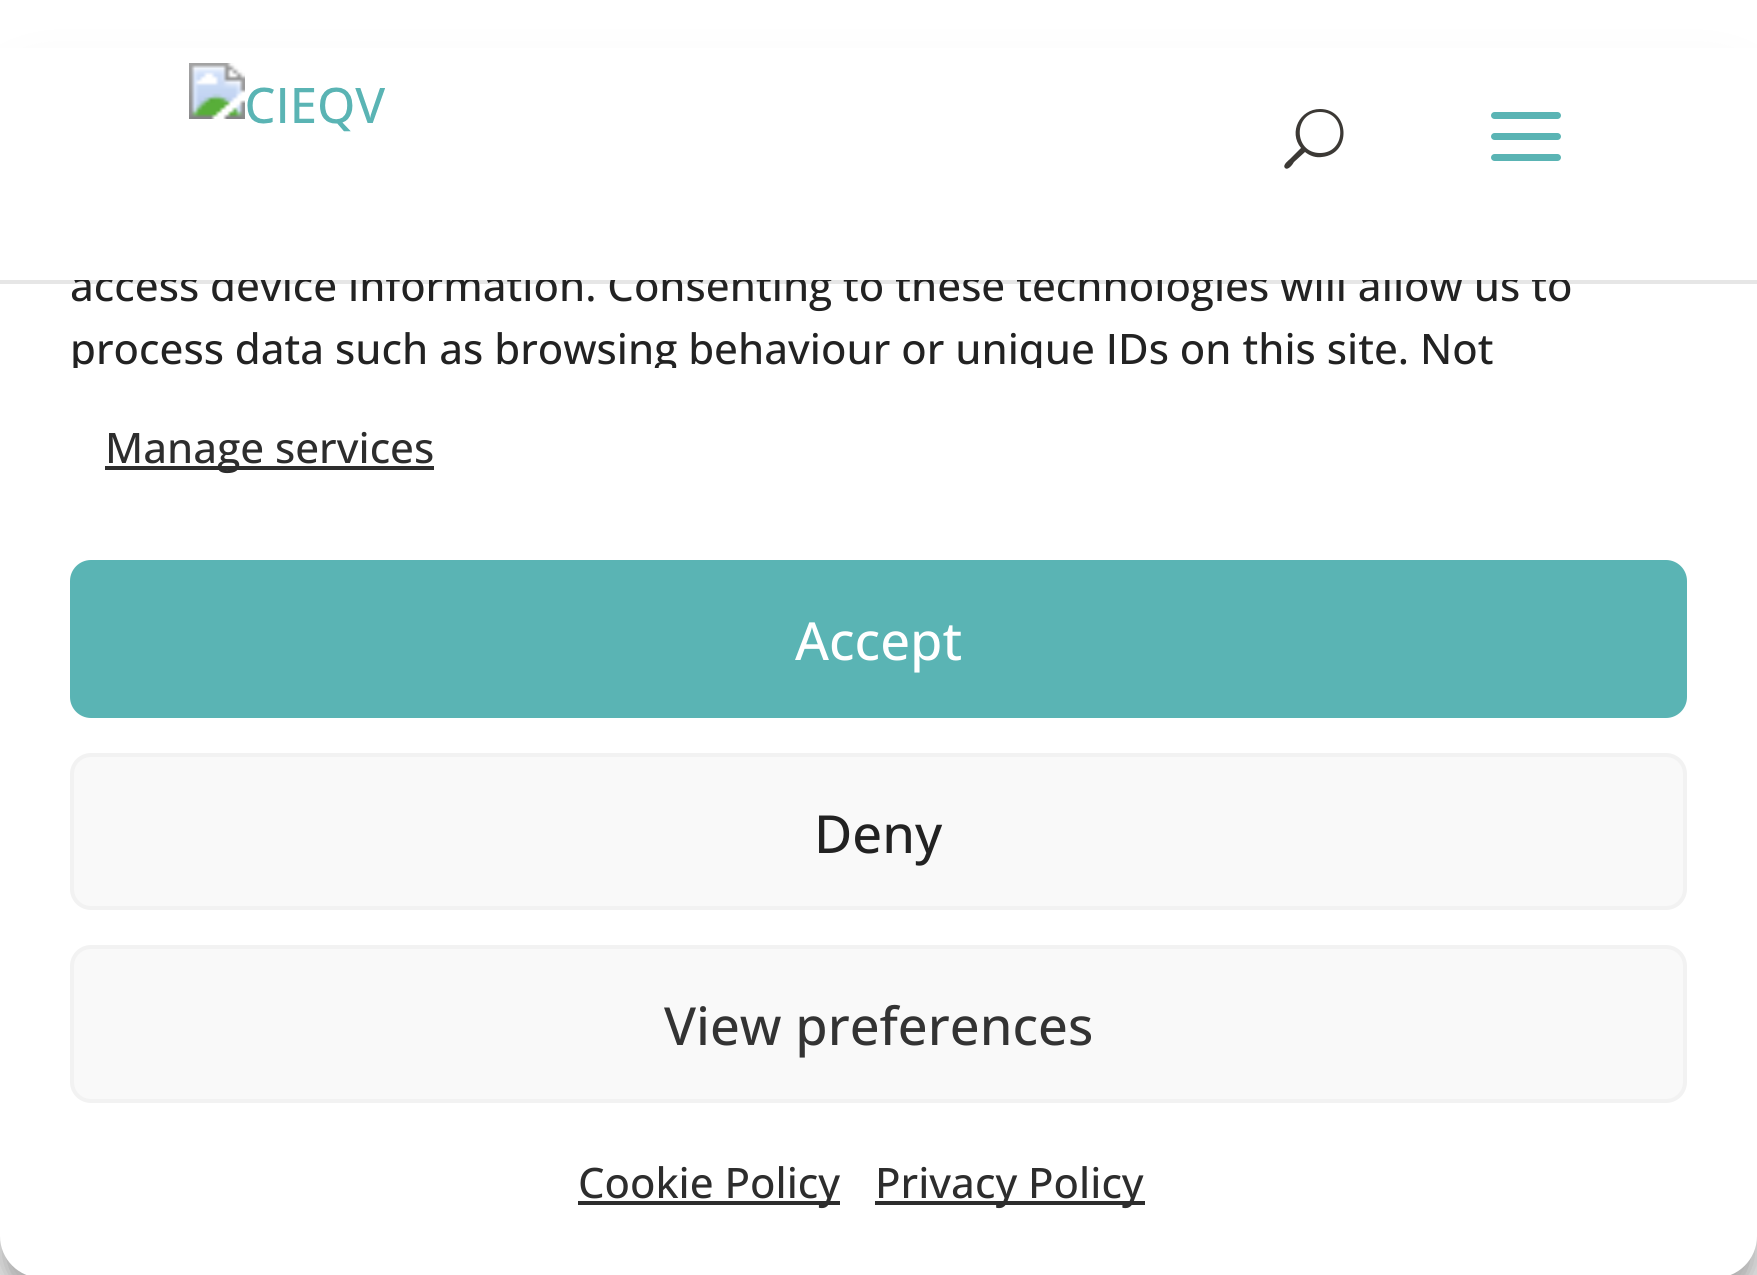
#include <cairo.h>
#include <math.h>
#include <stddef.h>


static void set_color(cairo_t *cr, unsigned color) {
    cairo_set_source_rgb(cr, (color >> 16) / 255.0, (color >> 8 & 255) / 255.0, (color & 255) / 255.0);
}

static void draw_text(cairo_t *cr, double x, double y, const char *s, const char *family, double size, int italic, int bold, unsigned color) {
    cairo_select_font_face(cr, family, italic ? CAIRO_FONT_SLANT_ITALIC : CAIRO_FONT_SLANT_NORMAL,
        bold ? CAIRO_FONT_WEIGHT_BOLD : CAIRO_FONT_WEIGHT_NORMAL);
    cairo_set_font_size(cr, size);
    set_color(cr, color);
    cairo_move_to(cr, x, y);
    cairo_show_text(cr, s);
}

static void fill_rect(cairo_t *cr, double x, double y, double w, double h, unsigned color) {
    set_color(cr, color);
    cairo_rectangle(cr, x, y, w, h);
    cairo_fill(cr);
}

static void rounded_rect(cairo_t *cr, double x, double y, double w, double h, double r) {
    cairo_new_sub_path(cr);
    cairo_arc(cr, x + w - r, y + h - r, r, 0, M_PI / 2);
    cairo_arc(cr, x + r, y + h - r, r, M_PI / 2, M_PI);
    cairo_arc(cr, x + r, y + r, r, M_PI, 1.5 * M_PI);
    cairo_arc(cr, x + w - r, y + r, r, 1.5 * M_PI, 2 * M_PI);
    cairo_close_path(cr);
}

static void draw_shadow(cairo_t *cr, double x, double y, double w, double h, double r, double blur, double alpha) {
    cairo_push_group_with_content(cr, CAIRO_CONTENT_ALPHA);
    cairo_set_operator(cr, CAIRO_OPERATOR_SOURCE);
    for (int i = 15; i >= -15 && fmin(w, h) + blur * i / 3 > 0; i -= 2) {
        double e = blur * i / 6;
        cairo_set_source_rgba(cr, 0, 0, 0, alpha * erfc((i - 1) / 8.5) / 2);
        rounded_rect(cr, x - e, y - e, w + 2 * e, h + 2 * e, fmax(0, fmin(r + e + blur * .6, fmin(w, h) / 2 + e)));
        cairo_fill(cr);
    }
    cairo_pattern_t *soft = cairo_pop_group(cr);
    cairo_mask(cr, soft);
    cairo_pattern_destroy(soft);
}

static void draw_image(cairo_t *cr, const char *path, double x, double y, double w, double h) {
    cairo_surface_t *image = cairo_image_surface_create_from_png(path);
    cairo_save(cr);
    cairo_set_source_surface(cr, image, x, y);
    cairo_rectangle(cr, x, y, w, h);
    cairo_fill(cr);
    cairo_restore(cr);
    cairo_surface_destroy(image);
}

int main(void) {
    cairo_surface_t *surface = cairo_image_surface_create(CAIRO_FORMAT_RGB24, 1757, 1275);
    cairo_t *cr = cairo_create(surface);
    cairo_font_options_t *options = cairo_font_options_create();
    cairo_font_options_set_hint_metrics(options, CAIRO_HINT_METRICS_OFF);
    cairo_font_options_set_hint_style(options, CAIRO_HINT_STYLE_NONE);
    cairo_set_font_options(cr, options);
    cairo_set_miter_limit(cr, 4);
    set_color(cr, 0xFFFFFF);
    cairo_paint(cr);
    set_color(cr, 0x000000);
    draw_shadow(cr, 0, 91, 1757, 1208, 42, 10.5, 0.23);
    draw_shadow(cr, 0, 105, 1757, 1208, 42, 35, 0.19);
    set_color(cr, 0xFFFFFF);
    rounded_rect(cr, 0, 70, 1757, 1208, 42);
    cairo_fill(cr);
    cairo_set_source_rgba(cr, 0, 0, 0, 0.1);
    cairo_rectangle(cr, 0, 280, 1757, 4);
    cairo_fill(cr);
    draw_text(cr, 70, 301, "access device information. Consenting to these technologies will allow us to", "Open Sans Medium", 42, 0, 0, 0x222222);
    fill_rect(cr, 0, 48, 1757, 232, 0xFFFFFF);
    draw_image(cr, "assets/img1.png", 189, 63, 196, 69);
    set_color(cr, 0x3C3935);
    cairo_new_path(cr);
    cairo_move_to(cr, 1320, 109);
    cairo_curve_to(cr, 1300, 109, 1288, 132, 1301, 148);
    cairo_line_to(cr, 1290, 159);
    cairo_curve_to(cr, 1289, 160, 1282, 165, 1285, 168);
    cairo_curve_to(cr, 1288, 171, 1293, 164, 1294, 162);
    cairo_line_to(cr, 1305, 152);
    cairo_curve_to(cr, 1310, 156, 1316, 158, 1322, 157);
    cairo_curve_to(cr, 1352, 154, 1350, 109, 1320, 109);
    cairo_close_path(cr);
    cairo_move_to(cr, 1320, 153);
    cairo_curve_to(cr, 1293, 153, 1293, 112, 1320, 112);
    cairo_curve_to(cr, 1347, 112, 1347, 153, 1320, 153);
    cairo_close_path(cr);
    cairo_fill(cr);
    draw_image(cr, "assets/img2.png", 1491, 112, 70, 49);
    cairo_save(cr);
    cairo_rectangle(cr, 70, 193, 1617, 175);
    cairo_clip(cr);
    draw_text(cr, 70, 364, "process data such as browsing behaviour or unique IDs on this site. Not", "Open Sans Medium", 42, 0, 0, 0x222222);
    cairo_restore(cr);
    fill_rect(cr, 105, 466, 329, 4, 0x2D2D2D);
    draw_text(cr, 105, 463, "Manage services", "Open Sans Medium", 42, 0, 0, 0x2D2D2D);
    set_color(cr, 0x5AB4B4);
    rounded_rect(cr, 72, 562, 1613, 154, 19);
    cairo_fill_preserve(cr);
    cairo_set_line_width(cr, 4);
    cairo_stroke(cr);
    draw_text(cr, 795, 660, "Accept", "Open Sans Medium", 52.5, 0, 0, 0xFFFFFF);
    set_color(cr, 0xF9F9F9);
    rounded_rect(cr, 72, 755, 1613, 153, 19);
    cairo_fill_preserve(cr);
    set_color(cr, 0xF2F2F2);
    cairo_stroke(cr);
    draw_text(cr, 814, 853, "Deny", "Open Sans Medium", 52.5, 0, 0, 0x222222);
    set_color(cr, 0xF9F9F9);
    rounded_rect(cr, 72, 947, 1613, 154, 19);
    cairo_fill_preserve(cr);
    set_color(cr, 0xF2F2F2);
    cairo_stroke(cr);
    draw_text(cr, 664, 1045, "View preferences", "Open Sans Medium", 52.5, 0, 0, 0x333333);
    fill_rect(cr, 578, 1201, 262, 4, 0x2D2D2D);
    draw_text(cr, 578, 1198, "Cookie Policy", "Open Sans Medium", 42, 0, 0, 0x2D2D2D);
    fill_rect(cr, 875, 1201, 270, 4, 0x2D2D2D);
    draw_text(cr, 875, 1198, "Privacy Policy", "Open Sans Medium", 42, 0, 0, 0x2D2D2D);
    cairo_surface_write_to_png(surface, "output.png");
    cairo_font_options_destroy(options);
    cairo_destroy(cr);
    cairo_surface_destroy(surface);
    return 0;
}
